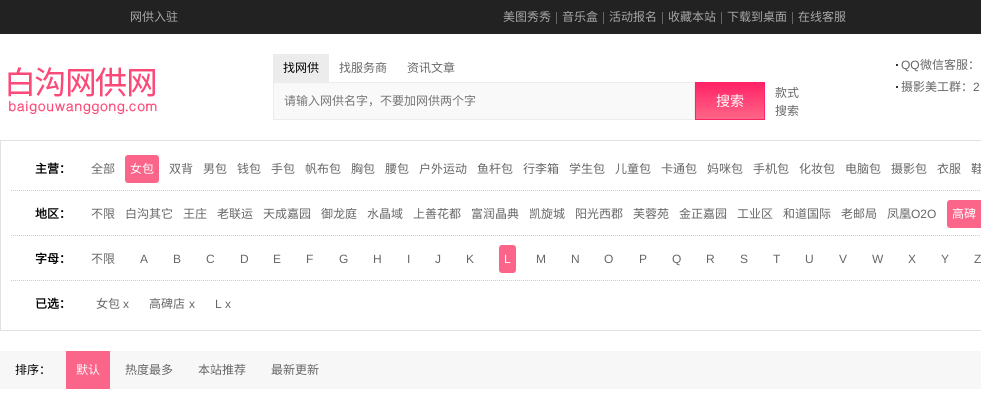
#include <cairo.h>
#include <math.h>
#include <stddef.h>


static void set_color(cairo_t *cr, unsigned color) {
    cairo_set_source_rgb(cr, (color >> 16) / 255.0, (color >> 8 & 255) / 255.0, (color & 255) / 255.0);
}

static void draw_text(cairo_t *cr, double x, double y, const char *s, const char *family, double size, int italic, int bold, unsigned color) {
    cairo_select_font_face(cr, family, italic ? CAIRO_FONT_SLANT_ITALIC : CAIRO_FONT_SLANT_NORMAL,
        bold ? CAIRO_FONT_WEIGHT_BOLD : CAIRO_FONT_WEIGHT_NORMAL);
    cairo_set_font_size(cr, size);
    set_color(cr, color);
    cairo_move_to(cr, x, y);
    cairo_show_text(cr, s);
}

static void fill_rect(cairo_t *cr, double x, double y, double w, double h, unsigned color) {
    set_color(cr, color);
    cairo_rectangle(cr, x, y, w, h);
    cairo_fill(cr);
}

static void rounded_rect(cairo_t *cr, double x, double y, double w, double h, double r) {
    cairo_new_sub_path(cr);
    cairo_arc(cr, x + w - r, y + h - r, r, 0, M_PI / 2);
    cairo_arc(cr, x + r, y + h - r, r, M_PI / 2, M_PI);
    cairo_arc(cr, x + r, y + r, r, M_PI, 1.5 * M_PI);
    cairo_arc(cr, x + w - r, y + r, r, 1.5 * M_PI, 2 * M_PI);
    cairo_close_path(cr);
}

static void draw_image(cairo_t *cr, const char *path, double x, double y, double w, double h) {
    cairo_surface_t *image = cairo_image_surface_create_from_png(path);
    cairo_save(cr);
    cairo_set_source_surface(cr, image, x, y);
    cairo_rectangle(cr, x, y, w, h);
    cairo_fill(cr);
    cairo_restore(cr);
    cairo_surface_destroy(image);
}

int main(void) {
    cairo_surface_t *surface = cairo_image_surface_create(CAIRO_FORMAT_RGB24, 981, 404);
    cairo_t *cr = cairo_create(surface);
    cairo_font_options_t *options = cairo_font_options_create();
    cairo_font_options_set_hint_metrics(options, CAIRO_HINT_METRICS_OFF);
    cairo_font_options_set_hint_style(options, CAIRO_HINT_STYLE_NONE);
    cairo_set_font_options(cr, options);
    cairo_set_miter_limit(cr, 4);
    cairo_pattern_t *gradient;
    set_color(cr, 0xFFFFFF);
    cairo_paint(cr);
    fill_rect(cr, 0, 0, 981, 34, 0x222222);
    draw_text(cr, 130, 21, "网供入驻", "Noto Sans CJK SC", 12, 0, 0, 0xA7A7A7);
    draw_text(cr, 503, 21, "美图秀秀", "Noto Sans CJK SC", 12, 0, 0, 0xA7A7A7);
    fill_rect(cr, 556, 12, 1, 12, 0x666666);
    draw_text(cr, 562, 21, "音乐盒", "Noto Sans CJK SC", 12, 0, 0, 0xA7A7A7);
    fill_rect(cr, 603, 12, 1, 12, 0x666666);
    draw_text(cr, 609, 21, "活动报名", "Noto Sans CJK SC", 12, 0, 0, 0xA7A7A7);
    fill_rect(cr, 662, 12, 1, 12, 0x666666);
    draw_text(cr, 668, 21, "收藏本站", "Noto Sans CJK SC", 12, 0, 0, 0xA7A7A7);
    fill_rect(cr, 721, 12, 1, 12, 0x666666);
    draw_text(cr, 727, 21, "下载到桌面", "Noto Sans CJK SC", 12, 0, 0, 0xA7A7A7);
    fill_rect(cr, 792, 12, 1, 12, 0x666666);
    draw_text(cr, 798, 21, "在线客服", "Noto Sans CJK SC", 12, 0, 0, 0xA7A7A7);
    draw_image(cr, "assets/img1.png", 8, 67, 149, 47);
    fill_rect(cr, 273, 54, 56, 28, 0xECECEC);
    draw_text(cr, 283, 72, "找网供", "Noto Sans CJK SC", 12, 0, 0, 0x000000);
    draw_text(cr, 339, 72, "找服务商", "Noto Sans CJK SC", 12, 0, 0, 0x666666);
    draw_text(cr, 407, 72, "资讯文章", "Noto Sans CJK SC", 12, 0, 0, 0x666666);
    set_color(cr, 0xF9F9F9);
    cairo_rectangle(cr, 273.5, 82.5, 421, 37);
    cairo_fill_preserve(cr);
    set_color(cr, 0xECECEC);
    cairo_set_line_width(cr, 1);
    cairo_stroke(cr);
    draw_text(cr, 284, 105, "请输入网供名字，不要加网供两个字", "Noto Sans CJK SC", 12, 0, 0, 0x757575);
    gradient = cairo_pattern_create_linear(730, 83, 730, 119);
    cairo_pattern_add_color_stop_rgba(gradient, 0, 1, 0.133, 0.4, 1);
    cairo_pattern_add_color_stop_rgba(gradient, 1, 1, 0.4, 0.533, 1);
    cairo_set_source(cr, gradient);
    cairo_pattern_destroy(gradient);
    cairo_rectangle(cr, 696, 83, 68, 36);
    cairo_fill(cr);
    cairo_rectangle(cr, 695.5, 82.5, 69, 37);
    set_color(cr, 0xFF2266);
    cairo_stroke(cr);
    draw_text(cr, 716, 106, "搜索", "Noto Sans CJK SC", 14, 0, 0, 0xFFFFFF);
    draw_text(cr, 775, 97, "款式", "Noto Sans CJK SC", 12, 0, 0, 0x666666);
    draw_text(cr, 775, 115, "搜索", "Noto Sans CJK SC", 12, 0, 0, 0x666666);
    fill_rect(cr, 896, 64, 2, 2, 0x333333);
    draw_text(cr, 901, 69, "QQ", "Liberation Sans", 12, 0, 0, 0x666666);
    draw_text(cr, 920, 69, "微信客服：", "Noto Sans CJK SC", 12, 0, 0, 0x666666);
    fill_rect(cr, 896, 86, 2, 2, 0x333333);
    draw_text(cr, 901, 91, "摄影美工群：", "Noto Sans CJK SC", 12, 0, 0, 0x666666);
    draw_text(cr, 973, 91, "2", "Liberation Sans", 12, 0, 0, 0x666666);
    cairo_rectangle(cr, 0.5, 140.5, 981, 190);
    set_color(cr, 0xE2E1E1);
    cairo_stroke(cr);
    cairo_new_path(cr);
    cairo_move_to(cr, 11, 190.5);
    cairo_line_to(cr, 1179, 190.5);
    set_color(cr, 0xCCCCCC);
    cairo_set_dash(cr, (double[]){1, 1}, 2, 0);
    cairo_stroke(cr);
    draw_text(cr, 35, 173, "主营：", "Noto Sans CJK SC", 12, 0, 1, 0x000000);
    draw_text(cr, 91, 173, "全部", "Noto Sans CJK SC", 12, 0, 0, 0x666666);
    set_color(cr, 0xFB658A);
    rounded_rect(cr, 125, 155, 34, 28, 3);
    cairo_fill(cr);
    draw_text(cr, 130, 173, "女包", "Noto Sans CJK SC", 12, 0, 0, 0xFFFFFF);
    draw_text(cr, 169, 173, "双背", "Noto Sans CJK SC", 12, 0, 0, 0x666666);
    draw_text(cr, 203, 173, "男包", "Noto Sans CJK SC", 12, 0, 0, 0x666666);
    draw_text(cr, 237, 173, "钱包", "Noto Sans CJK SC", 12, 0, 0, 0x666666);
    draw_text(cr, 271, 173, "手包", "Noto Sans CJK SC", 12, 0, 0, 0x666666);
    draw_text(cr, 305, 173, "帆布包", "Noto Sans CJK SC", 12, 0, 0, 0x666666);
    draw_text(cr, 351, 173, "胸包", "Noto Sans CJK SC", 12, 0, 0, 0x666666);
    draw_text(cr, 385, 173, "腰包", "Noto Sans CJK SC", 12, 0, 0, 0x666666);
    draw_text(cr, 419, 173, "户外运动", "Noto Sans CJK SC", 12, 0, 0, 0x666666);
    draw_text(cr, 477, 173, "鱼杆包", "Noto Sans CJK SC", 12, 0, 0, 0x666666);
    draw_text(cr, 523, 173, "行李箱", "Noto Sans CJK SC", 12, 0, 0, 0x666666);
    draw_text(cr, 569, 173, "学生包", "Noto Sans CJK SC", 12, 0, 0, 0x666666);
    draw_text(cr, 615, 173, "儿童包", "Noto Sans CJK SC", 12, 0, 0, 0x666666);
    draw_text(cr, 661, 173, "卡通包", "Noto Sans CJK SC", 12, 0, 0, 0x666666);
    draw_text(cr, 707, 173, "妈咪包", "Noto Sans CJK SC", 12, 0, 0, 0x666666);
    draw_text(cr, 753, 173, "手机包", "Noto Sans CJK SC", 12, 0, 0, 0x666666);
    draw_text(cr, 799, 173, "化妆包", "Noto Sans CJK SC", 12, 0, 0, 0x666666);
    draw_text(cr, 845, 173, "电脑包", "Noto Sans CJK SC", 12, 0, 0, 0x666666);
    draw_text(cr, 891, 173, "摄影包", "Noto Sans CJK SC", 12, 0, 0, 0x666666);
    draw_text(cr, 937, 173, "衣服", "Noto Sans CJK SC", 12, 0, 0, 0x666666);
    draw_text(cr, 971, 173, "鞋", "Noto Sans CJK SC", 12, 0, 0, 0x666666);
    cairo_new_path(cr);
    cairo_move_to(cr, 11, 235.5);
    cairo_line_to(cr, 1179, 235.5);
    set_color(cr, 0xCCCCCC);
    cairo_stroke(cr);
    draw_text(cr, 35, 218, "地区：", "Noto Sans CJK SC", 12, 0, 1, 0x000000);
    draw_text(cr, 91, 218, "不限", "Noto Sans CJK SC", 12, 0, 0, 0x666666);
    draw_text(cr, 125, 218, "白沟其它", "Noto Sans CJK SC", 12, 0, 0, 0x666666);
    draw_text(cr, 183, 218, "王庄", "Noto Sans CJK SC", 12, 0, 0, 0x666666);
    draw_text(cr, 217, 218, "老联运", "Noto Sans CJK SC", 12, 0, 0, 0x666666);
    draw_text(cr, 263, 218, "天成嘉园", "Noto Sans CJK SC", 12, 0, 0, 0x666666);
    draw_text(cr, 321, 218, "御龙庭", "Noto Sans CJK SC", 12, 0, 0, 0x666666);
    draw_text(cr, 367, 218, "水晶域", "Noto Sans CJK SC", 12, 0, 0, 0x666666);
    draw_text(cr, 413, 218, "上善花都", "Noto Sans CJK SC", 12, 0, 0, 0x666666);
    draw_text(cr, 471, 218, "富润晶典", "Noto Sans CJK SC", 12, 0, 0, 0x666666);
    draw_text(cr, 529, 218, "凯旋城", "Noto Sans CJK SC", 12, 0, 0, 0x666666);
    draw_text(cr, 575, 218, "阳光西郡", "Noto Sans CJK SC", 12, 0, 0, 0x666666);
    draw_text(cr, 633, 218, "芙蓉苑", "Noto Sans CJK SC", 12, 0, 0, 0x666666);
    draw_text(cr, 679, 218, "金正嘉园", "Noto Sans CJK SC", 12, 0, 0, 0x666666);
    draw_text(cr, 737, 218, "工业区", "Noto Sans CJK SC", 12, 0, 0, 0x666666);
    draw_text(cr, 783, 218, "和道国际", "Noto Sans CJK SC", 12, 0, 0, 0x666666);
    draw_text(cr, 841, 218, "老邮局", "Noto Sans CJK SC", 12, 0, 0, 0x666666);
    draw_text(cr, 887, 218, "凤凰", "Noto Sans CJK SC", 12, 0, 0, 0x666666);
    draw_text(cr, 911, 218, "O2O", "Liberation Sans", 12, 0, 0, 0x666666);
    set_color(cr, 0xFB658A);
    rounded_rect(cr, 947, 200, 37, 28, 3);
    cairo_fill(cr);
    draw_text(cr, 952, 218, "高碑", "Noto Sans CJK SC", 12, 0, 0, 0xFFFFFF);
    cairo_new_path(cr);
    cairo_move_to(cr, 11, 280.5);
    cairo_line_to(cr, 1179, 280.5);
    set_color(cr, 0xCCCCCC);
    cairo_stroke(cr);
    draw_text(cr, 35, 263, "字母：", "Noto Sans CJK SC", 12, 0, 1, 0x000000);
    draw_text(cr, 91, 263, "不限", "Noto Sans CJK SC", 12, 0, 0, 0x666666);
    draw_text(cr, 140, 263, "A", "Liberation Sans", 12, 0, 0, 0x666666);
    draw_text(cr, 173, 263, "B", "Liberation Sans", 12, 0, 0, 0x666666);
    draw_text(cr, 206, 263, "C", "Liberation Sans", 12, 0, 0, 0x666666);
    draw_text(cr, 240, 263, "D", "Liberation Sans", 12, 0, 0, 0x666666);
    draw_text(cr, 273, 263, "E", "Liberation Sans", 12, 0, 0, 0x666666);
    draw_text(cr, 306, 263, "F", "Liberation Sans", 12, 0, 0, 0x666666);
    draw_text(cr, 339, 263, "G", "Liberation Sans", 12, 0, 0, 0x666666);
    draw_text(cr, 373, 263, "H", "Liberation Sans", 12, 0, 0, 0x666666);
    draw_text(cr, 407, 263, "I", "Liberation Sans", 12, 0, 0, 0x666666);
    draw_text(cr, 435, 263, "J", "Liberation Sans", 12, 0, 0, 0x666666);
    draw_text(cr, 466, 263, "K", "Liberation Sans", 12, 0, 0, 0x666666);
    set_color(cr, 0xFB658A);
    rounded_rect(cr, 499, 245, 17, 28, 3);
    cairo_fill(cr);
    draw_text(cr, 504, 263, "L", "Liberation Sans", 12, 0, 0, 0xFFFFFF);
    draw_text(cr, 536, 263, "M", "Liberation Sans", 12, 0, 0, 0x666666);
    draw_text(cr, 571, 263, "N", "Liberation Sans", 12, 0, 0, 0x666666);
    draw_text(cr, 604, 263, "O", "Liberation Sans", 12, 0, 0, 0x666666);
    draw_text(cr, 639, 263, "P", "Liberation Sans", 12, 0, 0, 0x666666);
    draw_text(cr, 672, 263, "Q", "Liberation Sans", 12, 0, 0, 0x666666);
    draw_text(cr, 706, 263, "R", "Liberation Sans", 12, 0, 0, 0x666666);
    draw_text(cr, 740, 263, "S", "Liberation Sans", 12, 0, 0, 0x666666);
    draw_text(cr, 773, 263, "T", "Liberation Sans", 12, 0, 0, 0x666666);
    draw_text(cr, 805, 263, "U", "Liberation Sans", 12, 0, 0, 0x666666);
    draw_text(cr, 839, 263, "V", "Liberation Sans", 12, 0, 0, 0x666666);
    draw_text(cr, 872, 263, "W", "Liberation Sans", 12, 0, 0, 0x666666);
    draw_text(cr, 908, 263, "X", "Liberation Sans", 12, 0, 0, 0x666666);
    draw_text(cr, 941, 263, "Y", "Liberation Sans", 12, 0, 0, 0x666666);
    draw_text(cr, 974, 263, "Z", "Liberation Sans", 12, 0, 0, 0x666666);
    draw_text(cr, 35, 308, "已选：", "Noto Sans CJK SC", 12, 0, 1, 0x000000);
    draw_text(cr, 96, 308, "女包", "Noto Sans CJK SC", 12, 0, 0, 0x666666);
    draw_text(cr, 123, 308, "x", "Liberation Sans", 12, 0, 0, 0x666666);
    draw_text(cr, 149, 308, "高碑店", "Noto Sans CJK SC", 12, 0, 0, 0x666666);
    draw_text(cr, 189, 308, "x", "Liberation Sans", 12, 0, 0, 0x666666);
    draw_text(cr, 215, 308, "L x", "Liberation Sans", 12, 0, 0, 0x666666);
    fill_rect(cr, 0, 351, 981, 38, 0xF7F7F7);
    draw_text(cr, 15, 374, "排序：", "Noto Sans CJK SC", 12, 0, 0, 0x000000);
    fill_rect(cr, 66, 351, 44, 38, 0xFB658A);
    draw_text(cr, 76, 374, "默认", "Noto Sans CJK SC", 12, 0, 0, 0xFFFFFF);
    draw_text(cr, 125, 374, "热度最多", "Noto Sans CJK SC", 12, 0, 0, 0x666666);
    draw_text(cr, 198, 374, "本站推荐", "Noto Sans CJK SC", 12, 0, 0, 0x666666);
    draw_text(cr, 271, 374, "最新更新", "Noto Sans CJK SC", 12, 0, 0, 0x666666);
    cairo_surface_write_to_png(surface, "output.png");
    cairo_font_options_destroy(options);
    cairo_destroy(cr);
    cairo_surface_destroy(surface);
    return 0;
}
